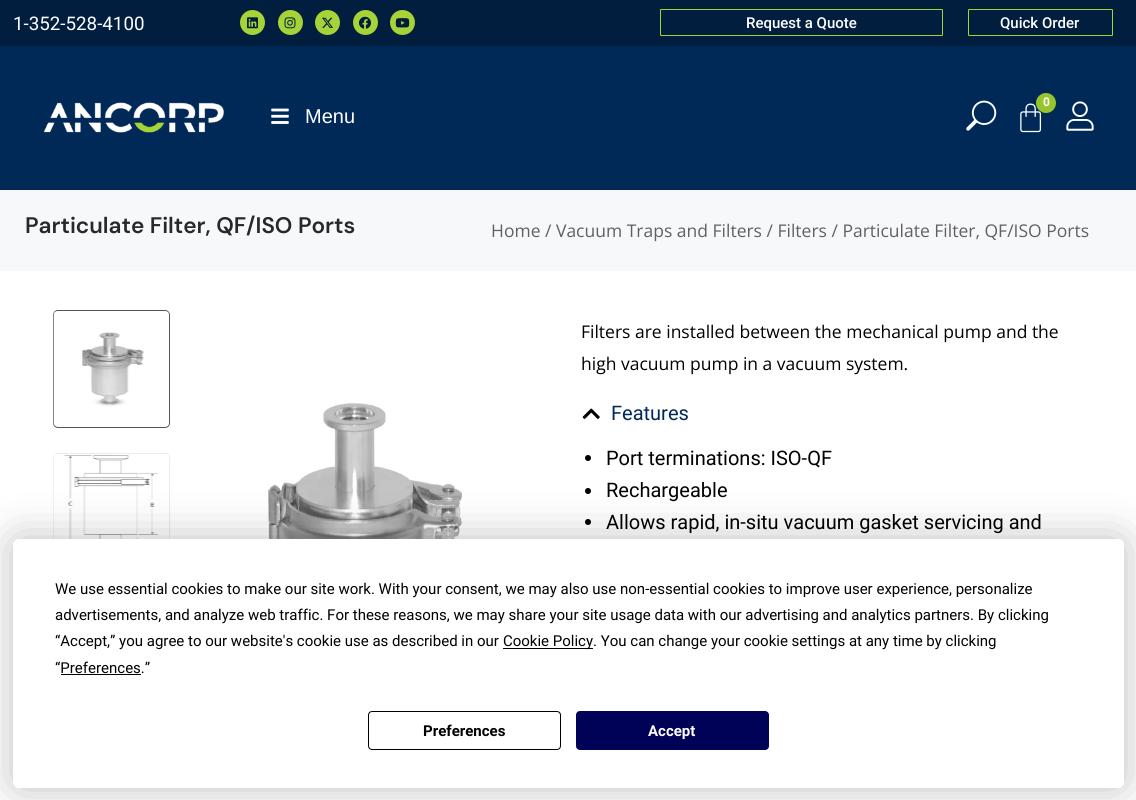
#include <cairo.h>
#include <math.h>
#include <stddef.h>


static void set_color(cairo_t *cr, unsigned color) {
    cairo_set_source_rgb(cr, (color >> 16) / 255.0, (color >> 8 & 255) / 255.0, (color & 255) / 255.0);
}

static void draw_text(cairo_t *cr, double x, double y, const char *s, const char *family, double size, int italic, int bold, unsigned color) {
    cairo_select_font_face(cr, family, italic ? CAIRO_FONT_SLANT_ITALIC : CAIRO_FONT_SLANT_NORMAL,
        bold ? CAIRO_FONT_WEIGHT_BOLD : CAIRO_FONT_WEIGHT_NORMAL);
    cairo_set_font_size(cr, size);
    set_color(cr, color);
    cairo_move_to(cr, x, y);
    cairo_show_text(cr, s);
}

static void fill_rect(cairo_t *cr, double x, double y, double w, double h, unsigned color) {
    set_color(cr, color);
    cairo_rectangle(cr, x, y, w, h);
    cairo_fill(cr);
}

static void rounded_rect(cairo_t *cr, double x, double y, double w, double h, double r) {
    cairo_new_sub_path(cr);
    cairo_arc(cr, x + w - r, y + h - r, r, 0, M_PI / 2);
    cairo_arc(cr, x + r, y + h - r, r, M_PI / 2, M_PI);
    cairo_arc(cr, x + r, y + r, r, M_PI, 1.5 * M_PI);
    cairo_arc(cr, x + w - r, y + r, r, 1.5 * M_PI, 2 * M_PI);
    cairo_close_path(cr);
}

static void draw_shadow(cairo_t *cr, double x, double y, double w, double h, double r, double blur, double alpha) {
    cairo_push_group_with_content(cr, CAIRO_CONTENT_ALPHA);
    cairo_set_operator(cr, CAIRO_OPERATOR_SOURCE);
    for (int i = 15; i >= -15 && fmin(w, h) + blur * i / 3 > 0; i -= 2) {
        double e = blur * i / 6;
        cairo_set_source_rgba(cr, 0, 0, 0, alpha * erfc((i - 1) / 8.5) / 2);
        rounded_rect(cr, x - e, y - e, w + 2 * e, h + 2 * e, fmax(0, fmin(r + e + blur * .6, fmin(w, h) / 2 + e)));
        cairo_fill(cr);
    }
    cairo_pattern_t *soft = cairo_pop_group(cr);
    cairo_mask(cr, soft);
    cairo_pattern_destroy(soft);
}

static void draw_image(cairo_t *cr, const char *path, double x, double y, double w, double h) {
    cairo_surface_t *image = cairo_image_surface_create_from_png(path);
    cairo_save(cr);
    cairo_set_source_surface(cr, image, x, y);
    cairo_rectangle(cr, x, y, w, h);
    cairo_fill(cr);
    cairo_restore(cr);
    cairo_surface_destroy(image);
}

int main(void) {
    cairo_surface_t *surface = cairo_image_surface_create(CAIRO_FORMAT_RGB24, 1136, 800);
    cairo_t *cr = cairo_create(surface);
    cairo_font_options_t *options = cairo_font_options_create();
    cairo_font_options_set_hint_metrics(options, CAIRO_HINT_METRICS_OFF);
    cairo_font_options_set_hint_style(options, CAIRO_HINT_STYLE_NONE);
    cairo_set_font_options(cr, options);
    cairo_set_miter_limit(cr, 4);
    set_color(cr, 0xFFFFFF);
    cairo_paint(cr);
    fill_rect(cr, 0, 0, 1136, 46, 0x021E3F);
    draw_text(cr, 13, 30, "1-352-528-4100", "Roboto", 18.75, 0, 0, 0xFFFFFF);
    set_color(cr, 0xA6D438);
    cairo_new_path(cr);
    cairo_arc(cr, 252.5, 22.5, 12.5, 0, 2 * M_PI);
    cairo_fill(cr);
    draw_image(cr, "assets/img1.png", 247, 17, 11, 12);
    cairo_arc(cr, 290.5, 22.5, 12.5, 0, 2 * M_PI);
    cairo_fill(cr);
    draw_image(cr, "assets/img2.png", 284, 17, 12, 12);
    cairo_arc(cr, 327.5, 22.5, 12.5, 0, 2 * M_PI);
    cairo_fill(cr);
    draw_image(cr, "assets/img3.png", 322, 17, 11, 11);
    cairo_arc(cr, 365.5, 22.5, 12.5, 0, 2 * M_PI);
    cairo_fill(cr);
    draw_image(cr, "assets/img4.png", 359, 16, 12, 13);
    cairo_arc(cr, 402.5, 22.5, 12.5, 0, 2 * M_PI);
    cairo_fill(cr);
    draw_image(cr, "assets/img5.png", 395, 18, 15, 10);
    rounded_rect(cr, 660.5, 9.5, 282, 26, 0.5);
    cairo_set_line_width(cr, 1);
    cairo_stroke(cr);
    draw_text(cr, 746, 28, "Request a Quote", "Roboto Medium", 15, 0, 0, 0xFFFFFF);
    rounded_rect(cr, 968.5, 9.5, 144, 26, 0.5);
    set_color(cr, 0xA6D438);
    cairo_stroke(cr);
    draw_text(cr, 1000, 28, "Quick Order", "Roboto Medium", 15, 0, 0, 0xFFFFFF);
    fill_rect(cr, 0, 46, 1136, 144, 0x002957);
    draw_image(cr, "assets/img6.png", 43, 102, 181, 31);
    draw_image(cr, "assets/img7.png", 271, 108, 18, 16);
    draw_text(cr, 305, 123, "Menu", "Liberation Sans", 20, 0, 0, 0xFFFFFF);
    draw_image(cr, "assets/img8.png", 966, 100, 31, 31);
    draw_image(cr, "assets/img9.png", 1020, 103, 22, 30);
    set_color(cr, 0x98C52D);
    cairo_arc(cr, 1046, 103, 10, 0, 2 * M_PI);
    cairo_fill(cr);
    draw_text(cr, 1043, 106, "0", "Roboto", 12, 0, 1, 0xFFFFFF);
    draw_image(cr, "assets/img10.png", 1066, 101, 28, 30);
    fill_rect(cr, 0, 190, 1136, 81, 0xF6F8F9);
    draw_text(cr, 25, 233, "Particulate Filter, QF/ISO Ports", "DM Sans SemiBold", 22.5, 0, 0, 0x282828);
    draw_text(cr, 491, 237, "Home / Vacuum Traps and Filters / Filters / Particulate Filter, QF/ISO Ports", "Open Sans", 17.5, 0, 0, 0x626060);
    rounded_rect(cr, 53.5, 310.5, 116, 117, 4.5);
    set_color(cr, 0x545454);
    cairo_stroke(cr);
    draw_image(cr, "assets/img11.png", 53, 311, 117, 115);
    rounded_rect(cr, 53.5, 453.5, 116, 116, 4.5);
    set_color(cr, 0xEBEBEB);
    cairo_stroke(cr);
    draw_image(cr, "assets/img12.png", 53, 454, 116, 85);
    draw_image(cr, "assets/img13.png", 268, 403, 194, 136);
    draw_text(cr, 581, 338, "Filters are installed between the mechanical pump and the", "Open Sans", 17.5, 0, 0, 0x000000);
    draw_text(cr, 581, 370, "high vacuum pump in a vacuum system.", "Open Sans", 17.5, 0, 0, 0x000000);
    draw_image(cr, "assets/img14.png", 582, 408, 18, 11);
    draw_text(cr, 611, 420, "Features", "Roboto", 20, 0, 0, 0x002957);
    set_color(cr, 0x000000);
    cairo_new_path(cr);
    cairo_arc(cr, 588, 458, 3, 0, 2 * M_PI);
    cairo_fill(cr);
    draw_text(cr, 606, 465, "Port terminations: ISO-QF", "Roboto", 20, 0, 0, 0x000000);
    cairo_new_path(cr);
    cairo_arc(cr, 588, 491, 3, 0, 2 * M_PI);
    cairo_fill(cr);
    draw_text(cr, 606, 497, "Rechargeable", "Roboto", 20, 0, 0, 0x000000);
    cairo_new_path(cr);
    cairo_arc(cr, 588, 522, 3, 0, 2 * M_PI);
    cairo_fill(cr);
    draw_text(cr, 606, 529, "Allows rapid, in-situ vacuum gasket servicing and", "Roboto", 20, 0, 0, 0x000000);
    set_color(cr, 0x000000);
    draw_shadow(cr, 13, 539, 1111, 249, 6, 22, 0.25);
    set_color(cr, 0xFFFFFF);
    rounded_rect(cr, 13, 539, 1111, 249, 6);
    cairo_fill(cr);
    draw_text(cr, 55, 594, "We use essential cookies to make our site work. With your consent, we may also use non-essential cookies to improve user experience, personalize", "Roboto", 15, 0, 0, 0x000000);
    draw_text(cr, 55, 620, "advertisements, and analyze web traffic. For these reasons, we may share your site usage data with our advertising and analytics partners. By clicking", "Roboto", 15, 0, 0, 0x000000);
    draw_text(cr, 55, 646, "“Accept,” you agree to our website's cookie use as described in our", "Roboto", 15, 0, 0, 0x000000);
    fill_rect(cr, 503, 648, 90, 1, 0x000000);
    draw_text(cr, 503, 646, "Cookie Policy. You can change your cookie settings at any time by clicking", "Roboto", 15, 0, 0, 0x000000);
    draw_text(cr, 55, 673, "“Preferences.”", "Roboto", 15, 0, 0, 0x000000);
    fill_rect(cr, 61, 674, 80, 1, 0x000000);
    rounded_rect(cr, 368.5, 711.5, 192, 38, 3.5);
    cairo_stroke(cr);
    draw_text(cr, 423, 736, "Preferences", "Roboto", 15, 0, 1, 0x000000);
    set_color(cr, 0x000258);
    rounded_rect(cr, 576.5, 711.5, 192, 38, 3.5);
    cairo_fill_preserve(cr);
    cairo_stroke(cr);
    draw_text(cr, 648, 736, "Accept", "Roboto", 15, 0, 1, 0xFFFFFF);
    cairo_surface_write_to_png(surface, "output.png");
    cairo_font_options_destroy(options);
    cairo_destroy(cr);
    cairo_surface_destroy(surface);
    return 0;
}
